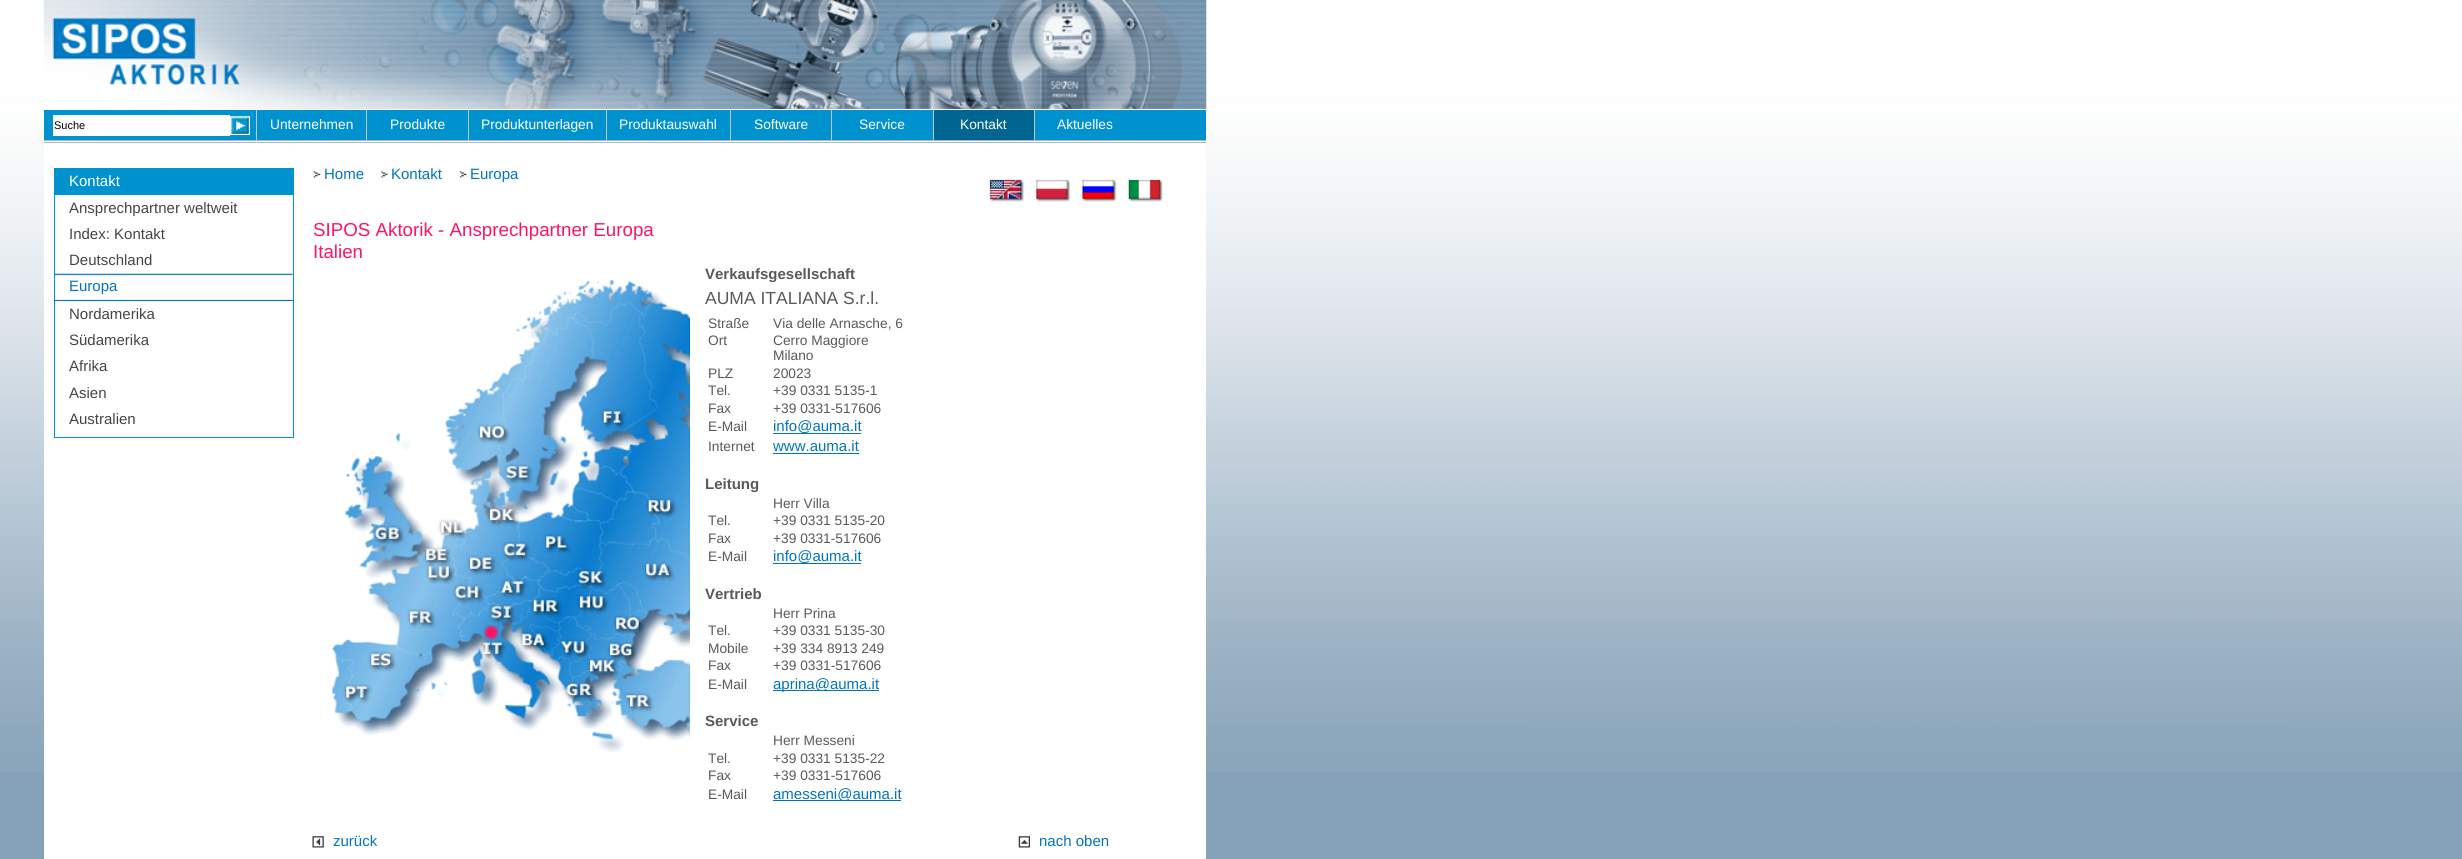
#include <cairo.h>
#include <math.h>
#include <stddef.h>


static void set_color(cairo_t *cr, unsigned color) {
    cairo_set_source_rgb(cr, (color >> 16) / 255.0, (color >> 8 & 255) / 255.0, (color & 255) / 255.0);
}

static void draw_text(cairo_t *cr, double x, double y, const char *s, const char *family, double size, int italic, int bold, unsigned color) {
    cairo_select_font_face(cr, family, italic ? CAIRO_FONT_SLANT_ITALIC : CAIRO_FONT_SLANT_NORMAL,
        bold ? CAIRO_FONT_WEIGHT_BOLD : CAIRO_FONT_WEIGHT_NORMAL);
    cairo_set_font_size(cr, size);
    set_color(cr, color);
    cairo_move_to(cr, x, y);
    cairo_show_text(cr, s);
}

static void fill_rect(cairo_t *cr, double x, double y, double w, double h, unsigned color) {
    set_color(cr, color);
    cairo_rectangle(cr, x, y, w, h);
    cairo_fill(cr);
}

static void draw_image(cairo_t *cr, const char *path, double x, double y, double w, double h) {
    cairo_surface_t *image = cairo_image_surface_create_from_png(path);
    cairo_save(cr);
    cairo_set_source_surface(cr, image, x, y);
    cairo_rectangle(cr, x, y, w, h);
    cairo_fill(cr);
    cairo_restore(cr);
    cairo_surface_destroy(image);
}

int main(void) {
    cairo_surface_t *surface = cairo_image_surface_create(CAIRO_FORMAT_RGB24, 2462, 859);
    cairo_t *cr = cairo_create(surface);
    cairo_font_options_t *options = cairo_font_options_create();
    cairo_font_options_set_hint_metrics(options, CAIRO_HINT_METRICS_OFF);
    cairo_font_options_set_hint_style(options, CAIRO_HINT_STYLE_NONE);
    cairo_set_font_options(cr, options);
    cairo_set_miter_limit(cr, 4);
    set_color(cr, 0x85A1B7);
    cairo_paint(cr);
    draw_image(cr, "assets/img1.png", 0, 0, 2462, 772);
    fill_rect(cr, 44, 140, 1162, 3, 0xA5B6C5);
    fill_rect(cr, 44, 141, 1162, 1, 0xFFFFFF);
    draw_image(cr, "assets/img2.png", 43, 0, 1164, 110);
    fill_rect(cr, 44, 110, 1162, 30, 0x0091CF);
    fill_rect(cr, 53, 115, 177, 21, 0xFFFFFF);
    draw_text(cr, 54, 129, "Suche", "Liberation Sans", 11, 0, 0, 0x000000);
    draw_image(cr, "assets/img3.png", 230, 116, 20, 19);
    fill_rect(cr, 198, 109, 1008, 1, 0xFFFFFF);
    fill_rect(cr, 256, 110, 1, 30, 0xBDC9D4);
    draw_text(cr, 270, 129, "Unternehmen", "Liberation Sans", 13.75, 0, 0, 0xFFFFFF);
    fill_rect(cr, 366, 110, 1, 30, 0xBDC9D4);
    draw_text(cr, 390, 129, "Produkte", "Liberation Sans", 13.75, 0, 0, 0xFFFFFF);
    fill_rect(cr, 468, 110, 1, 30, 0xBDC9D4);
    draw_text(cr, 481, 129, "Produktunterlagen", "Liberation Sans", 13.75, 0, 0, 0xFFFFFF);
    fill_rect(cr, 606, 110, 1, 30, 0xBDC9D4);
    draw_text(cr, 619, 129, "Produktauswahl", "Liberation Sans", 13.75, 0, 0, 0xFFFFFF);
    fill_rect(cr, 730, 110, 1, 30, 0xBDC9D4);
    draw_text(cr, 754, 129, "Software", "Liberation Sans", 13.75, 0, 0, 0xFFFFFF);
    fill_rect(cr, 831, 110, 1, 30, 0xBDC9D4);
    draw_text(cr, 859, 129, "Service", "Liberation Sans", 13.75, 0, 0, 0xFFFFFF);
    fill_rect(cr, 934, 110, 100, 30, 0x006591);
    fill_rect(cr, 933, 110, 1, 30, 0xBDC9D4);
    draw_text(cr, 960, 129, "Kontakt", "Liberation Sans", 13.75, 0, 0, 0xFFFFFF);
    fill_rect(cr, 1034, 110, 1, 30, 0xBDC9D4);
    draw_text(cr, 1057, 129, "Aktuelles", "Liberation Sans", 13.75, 0, 0, 0xFFFFFF);
    fill_rect(cr, 44, 143, 1162, 716, 0xFFFFFF);
    cairo_rectangle(cr, 54.5, 168.5, 239, 269);
    set_color(cr, 0x0091CF);
    cairo_set_line_width(cr, 1);
    cairo_stroke(cr);
    fill_rect(cr, 55, 169, 238, 26, 0x0091CF);
    draw_text(cr, 69, 186, "Kontakt", "Liberation Sans", 15, 0, 0, 0xFFFFFF);
    draw_text(cr, 69, 213, "Ansprechpartner weltweit", "Liberation Sans", 15, 0, 0, 0x444547);
    draw_text(cr, 69, 239, "Index: Kontakt", "Liberation Sans", 15, 0, 0, 0x444547);
    draw_text(cr, 69, 265, "Deutschland", "Liberation Sans", 15, 0, 0, 0x444547);
    draw_image(cr, "assets/img4.png", 55, 273, 238, 29);
    fill_rect(cr, 55, 300, 238, 1, 0x0074BE);
    draw_text(cr, 69, 291, "Europa", "Liberation Sans", 15, 0, 0, 0x0074BE);
    draw_text(cr, 69, 319, "Nordamerika", "Liberation Sans", 15, 0, 0, 0x444547);
    draw_text(cr, 69, 345, "Südamerika", "Liberation Sans", 15, 0, 0, 0x444547);
    draw_text(cr, 69, 371, "Afrika", "Liberation Sans", 15, 0, 0, 0x444547);
    draw_text(cr, 69, 398, "Asien", "Liberation Sans", 15, 0, 0, 0x444547);
    draw_text(cr, 69, 424, "Australien", "Liberation Sans", 15, 0, 0, 0x444547);
    draw_image(cr, "assets/img5.png", 313, 171, 8, 7);
    draw_text(cr, 324, 179, "Home", "Liberation Sans", 15, 0, 0, 0x0074BE);
    draw_image(cr, "assets/img6.png", 381, 171, 7, 7);
    draw_text(cr, 391, 179, "Kontakt", "Liberation Sans", 15, 0, 0, 0x0074BE);
    draw_image(cr, "assets/img7.png", 459, 171, 8, 7);
    draw_text(cr, 470, 179, "Europa", "Liberation Sans", 15, 0, 0, 0x0074BE);
    draw_text(cr, 313, 236, "SIPOS Aktorik - Ansprechpartner Europa", "Liberation Sans", 18.75, 0, 0, 0xFF1464);
    draw_text(cr, 313, 258, "Italien", "Liberation Sans", 18.75, 0, 0, 0xFF1464);
    draw_image(cr, "assets/img8.png", 331, 279, 359, 474);
    draw_image(cr, "assets/img9.png", 483, 625, 16, 16);
    draw_text(cr, 705, 279, "Verkaufsgesellschaft", "Liberation Sans", 15, 0, 1, 0x595959);
    draw_text(cr, 705, 304, "AUMA ITALIANA S.r.l.", "Liberation Sans", 17.5, 0, 0, 0x595959);
    draw_text(cr, 708, 328, "Straße", "Liberation Sans", 13.75, 0, 0, 0x595959);
    draw_text(cr, 773, 328, "Via delle Arnasche, 6", "Liberation Sans", 13.75, 0, 0, 0x595959);
    draw_text(cr, 708, 345, "Ort", "Liberation Sans", 13.75, 0, 0, 0x595959);
    draw_text(cr, 773, 345, "Cerro Maggiore", "Liberation Sans", 13.75, 0, 0, 0x595959);
    draw_text(cr, 773, 360, "Milano", "Liberation Sans", 13.75, 0, 0, 0x595959);
    draw_text(cr, 708, 378, "PLZ", "Liberation Sans", 13.75, 0, 0, 0x595959);
    draw_text(cr, 773, 378, "20023", "Liberation Sans", 13.75, 0, 0, 0x595959);
    draw_text(cr, 708, 395, "Tel.", "Liberation Sans", 13.75, 0, 0, 0x595959);
    draw_text(cr, 773, 395, "+39 0331 5135-1", "Liberation Sans", 13.75, 0, 0, 0x595959);
    draw_text(cr, 708, 413, "Fax", "Liberation Sans", 13.75, 0, 0, 0x595959);
    draw_text(cr, 773, 413, "+39 0331-517606", "Liberation Sans", 13.75, 0, 0, 0x595959);
    draw_text(cr, 708, 431, "E-Mail", "Liberation Sans", 13.75, 0, 0, 0x595959);
    fill_rect(cr, 773, 433, 88, 1, 0x0074BE);
    draw_text(cr, 773, 431, "info@auma.it", "Liberation Sans", 15, 0, 0, 0x0074BE);
    draw_text(cr, 708, 451, "Internet", "Liberation Sans", 13.75, 0, 0, 0x595959);
    draw_text(cr, 773, 451, "www.auma.it", "Liberation Sans", 15, 0, 0, 0x0074BE);
    fill_rect(cr, 773, 453, 86, 1, 0x0074BE);
    draw_text(cr, 705, 489, "Leitung", "Liberation Sans", 15, 0, 1, 0x595959);
    draw_text(cr, 773, 508, "Herr Villa", "Liberation Sans", 13.75, 0, 0, 0x595959);
    draw_text(cr, 708, 525, "Tel.", "Liberation Sans", 13.75, 0, 0, 0x595959);
    draw_text(cr, 773, 525, "+39 0331 5135-20", "Liberation Sans", 13.75, 0, 0, 0x595959);
    draw_text(cr, 708, 543, "Fax", "Liberation Sans", 13.75, 0, 0, 0x595959);
    draw_text(cr, 773, 543, "+39 0331-517606", "Liberation Sans", 13.75, 0, 0, 0x595959);
    draw_text(cr, 708, 561, "E-Mail", "Liberation Sans", 13.75, 0, 0, 0x595959);
    fill_rect(cr, 773, 563, 88, 1, 0x0074BE);
    draw_text(cr, 773, 561, "info@auma.it", "Liberation Sans", 15, 0, 0, 0x0074BE);
    draw_text(cr, 705, 599, "Vertrieb", "Liberation Sans", 15, 0, 1, 0x595959);
    draw_text(cr, 773, 618, "Herr Prina", "Liberation Sans", 13.75, 0, 0, 0x595959);
    draw_text(cr, 708, 635, "Tel.", "Liberation Sans", 13.75, 0, 0, 0x595959);
    draw_text(cr, 773, 635, "+39 0331 5135-30", "Liberation Sans", 13.75, 0, 0, 0x595959);
    draw_text(cr, 708, 653, "Mobile", "Liberation Sans", 13.75, 0, 0, 0x595959);
    draw_text(cr, 773, 653, "+39 334 8913 249", "Liberation Sans", 13.75, 0, 0, 0x595959);
    draw_text(cr, 708, 670, "Fax", "Liberation Sans", 13.75, 0, 0, 0x595959);
    draw_text(cr, 773, 670, "+39 0331-517606", "Liberation Sans", 13.75, 0, 0, 0x595959);
    draw_text(cr, 708, 689, "E-Mail", "Liberation Sans", 13.75, 0, 0, 0x595959);
    fill_rect(cr, 773, 690, 106, 1, 0x0074BE);
    draw_text(cr, 773, 689, "aprina@auma.it", "Liberation Sans", 15, 0, 0, 0x0074BE);
    draw_text(cr, 705, 726, "Service", "Liberation Sans", 15, 0, 1, 0x595959);
    draw_text(cr, 773, 745, "Herr Messeni", "Liberation Sans", 13.75, 0, 0, 0x595959);
    draw_text(cr, 708, 763, "Tel.", "Liberation Sans", 13.75, 0, 0, 0x595959);
    draw_text(cr, 773, 763, "+39 0331 5135-22", "Liberation Sans", 13.75, 0, 0, 0x595959);
    draw_text(cr, 708, 780, "Fax", "Liberation Sans", 13.75, 0, 0, 0x595959);
    draw_text(cr, 773, 780, "+39 0331-517606", "Liberation Sans", 13.75, 0, 0, 0x595959);
    draw_text(cr, 708, 799, "E-Mail", "Liberation Sans", 13.75, 0, 0, 0x595959);
    fill_rect(cr, 773, 800, 128, 1, 0x0074BE);
    draw_text(cr, 773, 799, "amesseni@auma.it", "Liberation Sans", 15, 0, 0, 0x0074BE);
    draw_image(cr, "assets/img10.png", 312, 836, 12, 12);
    draw_text(cr, 333, 846, "zurück", "Liberation Sans", 15, 0, 0, 0x0074BE);
    draw_image(cr, "assets/img11.png", 1018, 836, 12, 12);
    draw_text(cr, 1039, 846, "nach oben", "Liberation Sans", 15, 0, 0, 0x0074BE);
    draw_image(cr, "assets/img12.png", 989, 179, 35, 23);
    draw_image(cr, "assets/img13.png", 1036, 179, 35, 23);
    draw_image(cr, "assets/img14.png", 1082, 179, 35, 23);
    draw_image(cr, "assets/img15.png", 1128, 179, 35, 23);
    cairo_surface_write_to_png(surface, "output.png");
    cairo_font_options_destroy(options);
    cairo_destroy(cr);
    cairo_surface_destroy(surface);
    return 0;
}
